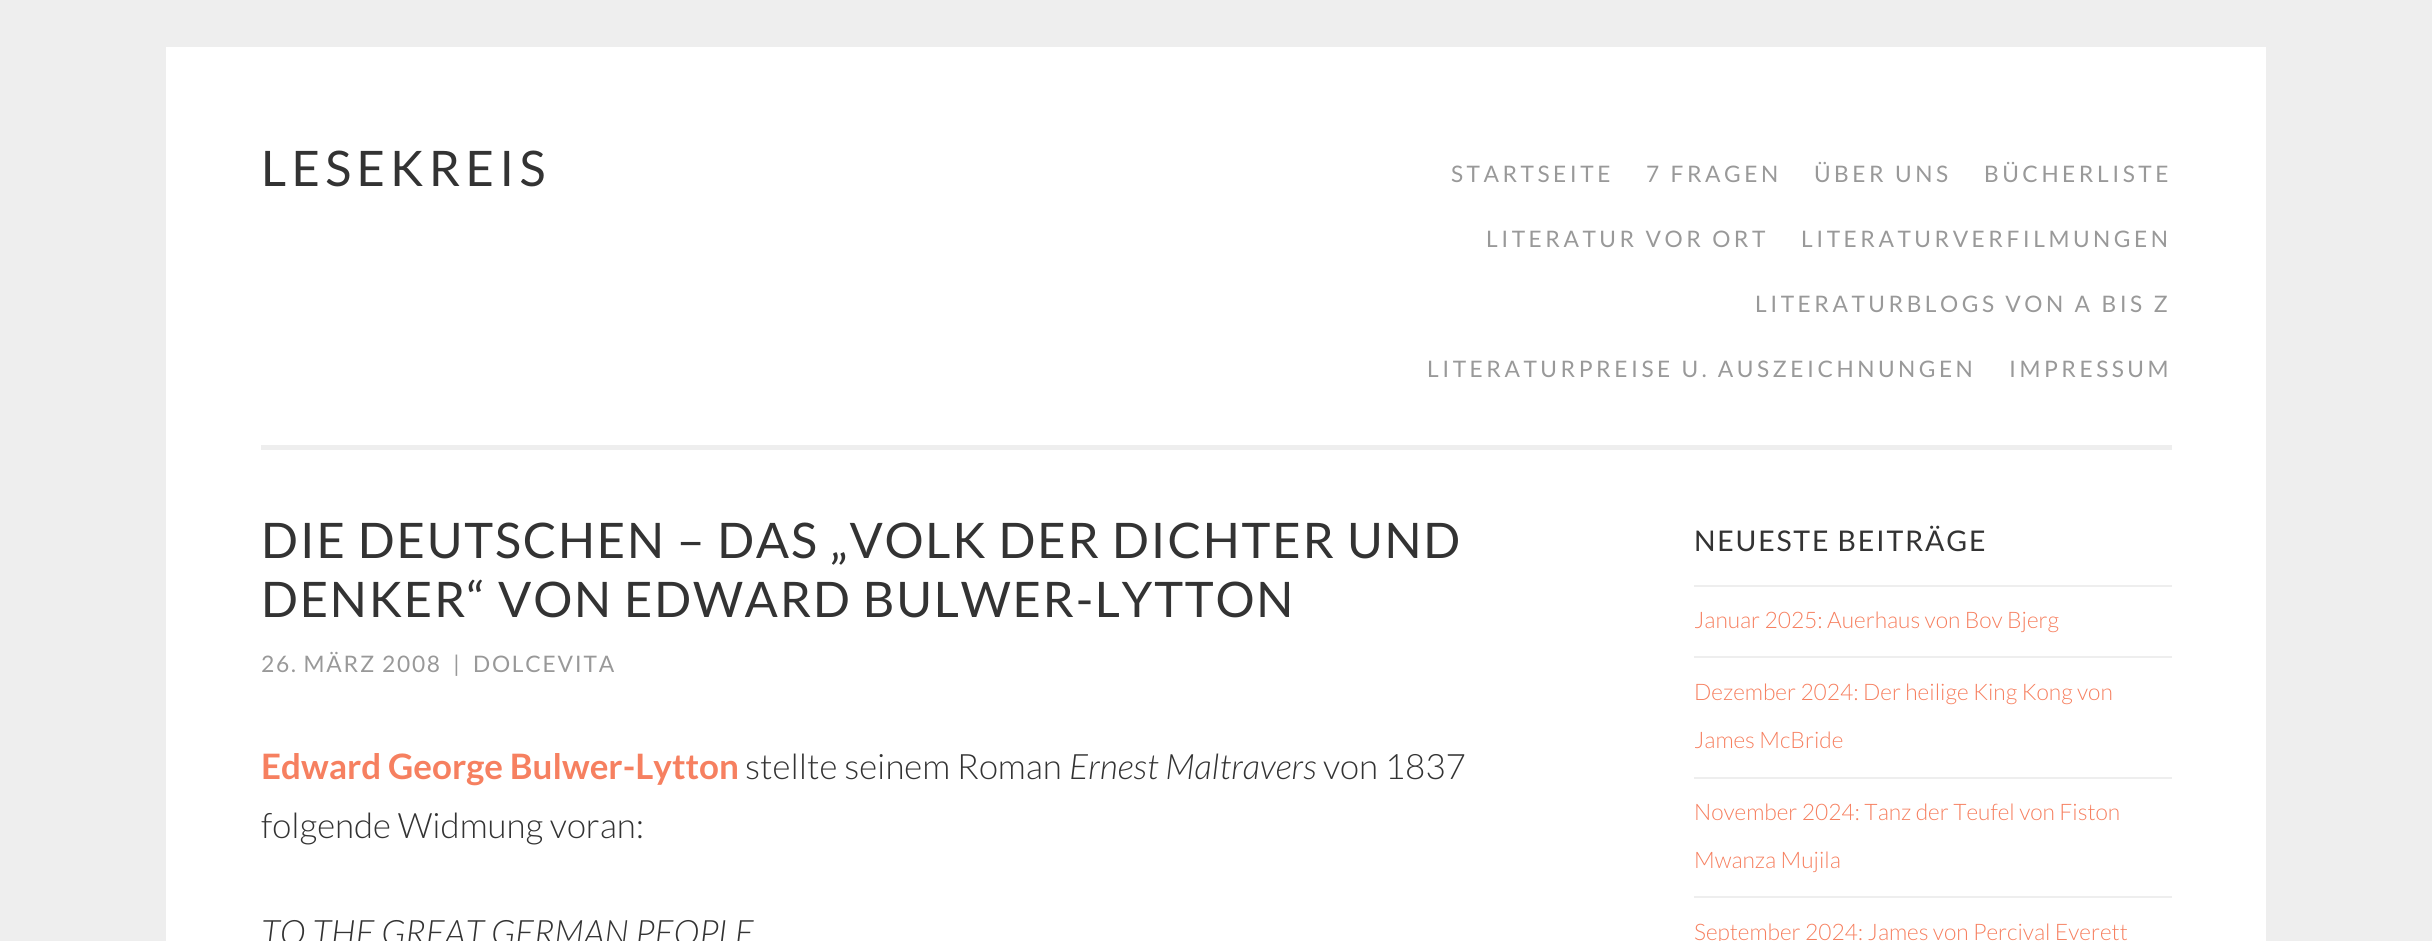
#include <cairo.h>
#include <math.h>
#include <stddef.h>


static void set_color(cairo_t *cr, unsigned color) {
    cairo_set_source_rgb(cr, (color >> 16) / 255.0, (color >> 8 & 255) / 255.0, (color & 255) / 255.0);
}

static void draw_text(cairo_t *cr, double x, double y, const char *s, const char *family, double size, int italic, int bold, unsigned color) {
    cairo_select_font_face(cr, family, italic ? CAIRO_FONT_SLANT_ITALIC : CAIRO_FONT_SLANT_NORMAL,
        bold ? CAIRO_FONT_WEIGHT_BOLD : CAIRO_FONT_WEIGHT_NORMAL);
    cairo_set_font_size(cr, size);
    set_color(cr, color);
    cairo_move_to(cr, x, y);
    cairo_show_text(cr, s);
}

static void draw_spaced(cairo_t *cr, double x, double y, const char *s, double letter, double word) {
    cairo_move_to(cr, x, y);
    while (*s) {
        char ch[5] = {0};
        int n = 0;
        do ch[n++] = *s++; while ((*s & 0xC0) == 0x80);
        cairo_show_text(cr, ch);
        cairo_rel_move_to(cr, letter + word * (*ch == ' '), 0);
    }
}

static void fill_rect(cairo_t *cr, double x, double y, double w, double h, unsigned color) {
    set_color(cr, color);
    cairo_rectangle(cr, x, y, w, h);
    cairo_fill(cr);
}

int main(void) {
    cairo_surface_t *surface = cairo_image_surface_create(CAIRO_FORMAT_RGB24, 2432, 941);
    cairo_t *cr = cairo_create(surface);
    cairo_font_options_t *options = cairo_font_options_create();
    cairo_font_options_set_hint_metrics(options, CAIRO_HINT_METRICS_OFF);
    cairo_font_options_set_hint_style(options, CAIRO_HINT_STYLE_NONE);
    cairo_set_font_options(cr, options);
    cairo_set_miter_limit(cr, 4);
    set_color(cr, 0xEEEEEE);
    cairo_paint(cr);
    fill_rect(cr, 166, 47, 2100, 894, 0xFFFFFF);
    fill_rect(cr, 261, 445, 1911, 5, 0xEEEEEE);
    cairo_select_font_face(cr, "Lato", CAIRO_FONT_SLANT_NORMAL, CAIRO_FONT_WEIGHT_NORMAL);
    cairo_set_font_size(cr, 49);
    set_color(cr, 0x333333);
    draw_spaced(cr, 261, 186, "LESEKREIS", 5.25, 0);
    cairo_set_font_size(cr, 22.75);
    set_color(cr, 0x999999);
    draw_spaced(cr, 1451, 182, "STARTSEITE", 3.5, 0);
    draw_spaced(cr, 1646, 182, "7 FRAGEN", 3.5, 0);
    draw_spaced(cr, 1814, 182, "ÜBER UNS", 3.5, 0);
    draw_spaced(cr, 1984, 182, "BÜCHERLISTE", 3.5, 0);
    draw_spaced(cr, 1486, 247, "LITERATUR VOR ORT", 3.5, 0);
    draw_spaced(cr, 1801, 247, "LITERATURVERFILMUNGEN", 3.5, 0);
    draw_spaced(cr, 1755, 312, "LITERATURBLOGS VON A BIS Z", 3.5, 0);
    draw_spaced(cr, 1427, 377, "LITERATURPREISE U. AUSZEICHNUNGEN", 3.5, 0);
    draw_spaced(cr, 2009, 377, "IMPRESSUM", 3.5, 0);
    cairo_set_font_size(cr, 49);
    set_color(cr, 0x333333);
    draw_spaced(cr, 261, 558, "DIE DEUTSCHEN – DAS „VOLK DER DICHTER UND", 1.75, 0);
    draw_spaced(cr, 261, 617, "DENKER“ VON EDWARD BULWER-LYTTON", 1.75, 0);
    cairo_set_font_size(cr, 22.75);
    set_color(cr, 0x999999);
    draw_spaced(cr, 261, 672, "26. MÄRZ 2008", 1.75, 0);
    draw_spaced(cr, 453, 672, "|", 1.75, 0);
    draw_spaced(cr, 473, 672, "DOLCEVITA", 1.75, 0);
    draw_text(cr, 261, 779, "Edward George Bulwer-Lytton", "Lato", 35, 0, 1, 0xF68060);
    draw_text(cr, 745, 779, "stellte seinem Roman", "Lato Light", 35, 0, 0, 0x333333);
    draw_text(cr, 1069, 779, "Ernest Maltravers", "Lato Light", 35, 1, 0, 0x333333);
    draw_text(cr, 1323, 779, "von 1837", "Lato Light", 35, 0, 0, 0x333333);
    draw_text(cr, 261, 838, "folgende Widmung voran:", "Lato Light", 35, 0, 0, 0x333333);
    draw_text(cr, 261, 945, "TO THE GREAT GERMAN PEOPLE", "Lato Light", 35, 1, 0, 0x333333);
    cairo_select_font_face(cr, "Lato", CAIRO_FONT_SLANT_NORMAL, CAIRO_FONT_WEIGHT_NORMAL);
    cairo_set_font_size(cr, 28.5);
    draw_spaced(cr, 1694, 551, "NEUESTE BEITRÄGE", 1.75, 0);
    fill_rect(cr, 1694, 585, 478, 2, 0xEEEEEE);
    draw_text(cr, 1694, 628, "Januar 2025: Auerhaus von Bov Bjerg", "Lato Light", 22.75, 0, 0, 0xF68060);
    fill_rect(cr, 1694, 656, 478, 2, 0xEEEEEE);
    draw_text(cr, 1694, 700, "Dezember 2024: Der heilige King Kong von", "Lato Light", 22.75, 0, 0, 0xF68060);
    draw_text(cr, 1694, 748, "James McBride", "Lato Light", 22.75, 0, 0, 0xF68060);
    fill_rect(cr, 1694, 777, 478, 2, 0xEEEEEE);
    draw_text(cr, 1694, 820, "November 2024: Tanz der Teufel von Fiston", "Lato Light", 22.75, 0, 0, 0xF68060);
    draw_text(cr, 1694, 868, "Mwanza Mujila", "Lato Light", 22.75, 0, 0, 0xF68060);
    fill_rect(cr, 1694, 896, 478, 2, 0xEEEEEE);
    draw_text(cr, 1694, 940, "September 2024: James von Percival Everett", "Lato Light", 22.75, 0, 0, 0xF68060);
    cairo_surface_write_to_png(surface, "output.png");
    cairo_font_options_destroy(options);
    cairo_destroy(cr);
    cairo_surface_destroy(surface);
    return 0;
}
